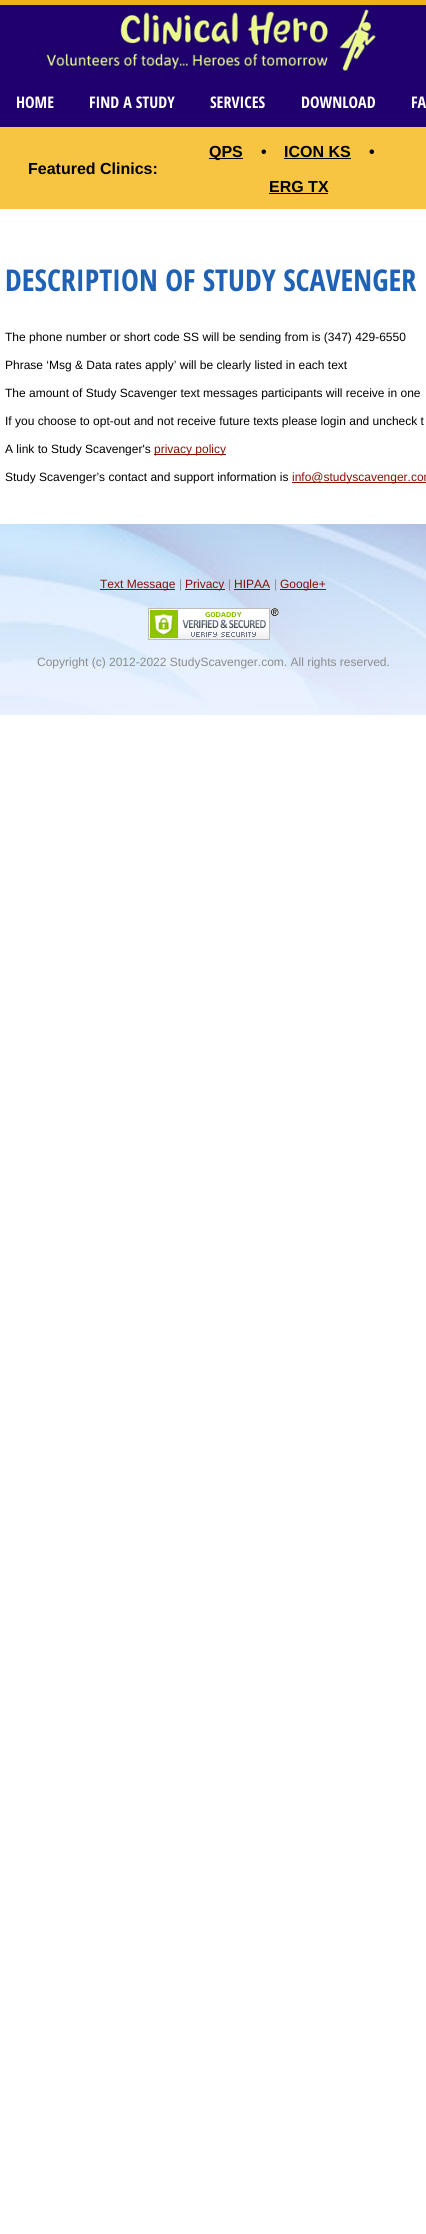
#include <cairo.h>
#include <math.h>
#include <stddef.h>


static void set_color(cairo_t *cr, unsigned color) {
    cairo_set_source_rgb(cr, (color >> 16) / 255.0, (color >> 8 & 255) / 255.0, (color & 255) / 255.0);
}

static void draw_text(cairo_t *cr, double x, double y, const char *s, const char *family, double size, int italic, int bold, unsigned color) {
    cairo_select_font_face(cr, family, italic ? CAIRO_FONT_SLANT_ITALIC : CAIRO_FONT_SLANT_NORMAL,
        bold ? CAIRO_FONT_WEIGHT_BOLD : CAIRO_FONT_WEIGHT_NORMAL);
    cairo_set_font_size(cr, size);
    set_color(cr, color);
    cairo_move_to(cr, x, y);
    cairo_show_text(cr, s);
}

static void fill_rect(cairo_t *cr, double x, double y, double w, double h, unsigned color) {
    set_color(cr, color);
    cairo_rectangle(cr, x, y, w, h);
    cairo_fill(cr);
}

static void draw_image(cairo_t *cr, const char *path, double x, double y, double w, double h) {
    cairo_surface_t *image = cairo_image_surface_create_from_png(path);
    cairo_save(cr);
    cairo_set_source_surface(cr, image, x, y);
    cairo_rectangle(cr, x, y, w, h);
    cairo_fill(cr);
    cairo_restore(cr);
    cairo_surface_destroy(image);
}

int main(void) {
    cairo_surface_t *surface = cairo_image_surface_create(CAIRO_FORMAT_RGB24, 426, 2234);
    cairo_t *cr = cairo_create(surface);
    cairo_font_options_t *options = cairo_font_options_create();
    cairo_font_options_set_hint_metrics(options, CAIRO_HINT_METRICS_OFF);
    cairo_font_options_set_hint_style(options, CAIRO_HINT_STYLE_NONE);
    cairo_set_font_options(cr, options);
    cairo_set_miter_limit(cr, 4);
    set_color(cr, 0xFFFFFF);
    cairo_paint(cr);
    fill_rect(cr, 0, 0, 426, 5, 0xEEB11E);
    fill_rect(cr, 0, 5, 426, 122, 0x1F006C);
    draw_image(cr, "assets/img1.png", 43, 5, 333, 68);
    draw_text(cr, 16, 108, "HOME", "Open Sans Condensed", 16, 0, 1, 0xFFFFFF);
    draw_text(cr, 89, 108, "FIND A STUDY", "Open Sans Condensed", 16, 0, 1, 0xFFFFFF);
    draw_text(cr, 210, 108, "SERVICES", "Open Sans Condensed", 16, 0, 1, 0xFFFFFF);
    draw_text(cr, 301, 108, "DOWNLOAD", "Open Sans Condensed", 16, 0, 1, 0xFFFFFF);
    draw_text(cr, 411, 108, "FA", "Open Sans Condensed", 16, 0, 1, 0xFFFFFF);
    fill_rect(cr, 0, 127, 426, 82, 0xF7C542);
    draw_text(cr, 28, 174, "Featured Clinics:", "Liberation Sans", 16, 0, 1, 0x000000);
    fill_rect(cr, 209, 158, 34, 1, 0x000000);
    draw_text(cr, 209, 157, "QPS", "Liberation Sans", 16, 0, 1, 0x000000);
    draw_text(cr, 261, 157, "•", "Liberation Sans", 16, 0, 1, 0x000000);
    draw_text(cr, 284, 157, "ICON KS", "Liberation Sans", 16, 0, 1, 0x000000);
    fill_rect(cr, 284, 158, 67, 1, 0x000000);
    draw_text(cr, 369, 157, "•", "Liberation Sans", 16, 0, 1, 0x000000);
    draw_text(cr, 269, 192, "ERG TX", "Liberation Sans", 16, 0, 1, 0x000000);
    fill_rect(cr, 269, 193, 59, 1, 0x000000);
    draw_image(cr, "assets/img2.png", 0, 524, 426, 191);
    draw_text(cr, 5, 291, "DESCRIPTION OF STUDY SCAVENGER", "Open Sans Condensed", 30, 0, 1, 0x1E61B5);
    draw_text(cr, 5, 341, "The phone number or short code SS will be sending from is (347) 429-6550", "Liberation Sans", 12, 0, 0, 0x000000);
    draw_text(cr, 5, 369, "Phrase ‘Msg & Data rates apply’ will be clearly listed in each text", "Liberation Sans", 12, 0, 0, 0x000000);
    draw_text(cr, 5, 397, "The amount of Study Scavenger text messages participants will receive in one", "Liberation Sans", 12, 0, 0, 0x000000);
    draw_text(cr, 5, 425, "If you choose to opt-out and not receive future texts please login and uncheck t", "Liberation Sans", 12, 0, 0, 0x000000);
    draw_text(cr, 5, 453, "A link to Study Scavenger's", "Liberation Sans", 12, 0, 0, 0x000000);
    fill_rect(cr, 154, 454, 72, 1, 0x861004);
    draw_text(cr, 154, 453, "privacy policy", "Liberation Sans", 12, 0, 0, 0x861004);
    draw_text(cr, 5, 481, "Study Scavenger’s contact and support information is", "Liberation Sans", 12, 0, 0, 0x000000);
    fill_rect(cr, 292, 482, 134, 1, 0x861004);
    draw_text(cr, 292, 481, "info@studyscavenger.com", "Liberation Sans", 12, 0, 0, 0x861004);
    fill_rect(cr, 100, 589, 75, 1, 0x861004);
    draw_text(cr, 100, 588, "Text Message", "Liberation Sans", 12, 0, 0, 0x861004);
    draw_text(cr, 179, 588, "|", "Liberation Sans", 12, 0, 0, 0x8C8C8C);
    fill_rect(cr, 185, 589, 40, 1, 0x861004);
    draw_text(cr, 185, 588, "Privacy", "Liberation Sans", 12, 0, 0, 0x861004);
    draw_text(cr, 228, 588, "|", "Liberation Sans", 12, 0, 0, 0x8C8C8C);
    draw_text(cr, 234, 588, "HIPAA", "Liberation Sans", 12, 0, 0, 0x861004);
    fill_rect(cr, 234, 589, 36, 1, 0x861004);
    draw_text(cr, 274, 588, "|", "Liberation Sans", 12, 0, 0, 0x8C8C8C);
    fill_rect(cr, 280, 589, 46, 1, 0x861004);
    draw_text(cr, 280, 588, "Google+", "Liberation Sans", 12, 0, 0, 0x861004);
    draw_image(cr, "assets/img3.png", 148, 608, 131, 32);
    draw_text(cr, 37, 666, "Copyright (c) 2012-2022 StudyScavenger.com. All rights reserved.", "Liberation Sans", 12, 0, 0, 0x8C8C8C);
    cairo_surface_write_to_png(surface, "output.png");
    cairo_font_options_destroy(options);
    cairo_destroy(cr);
    cairo_surface_destroy(surface);
    return 0;
}
